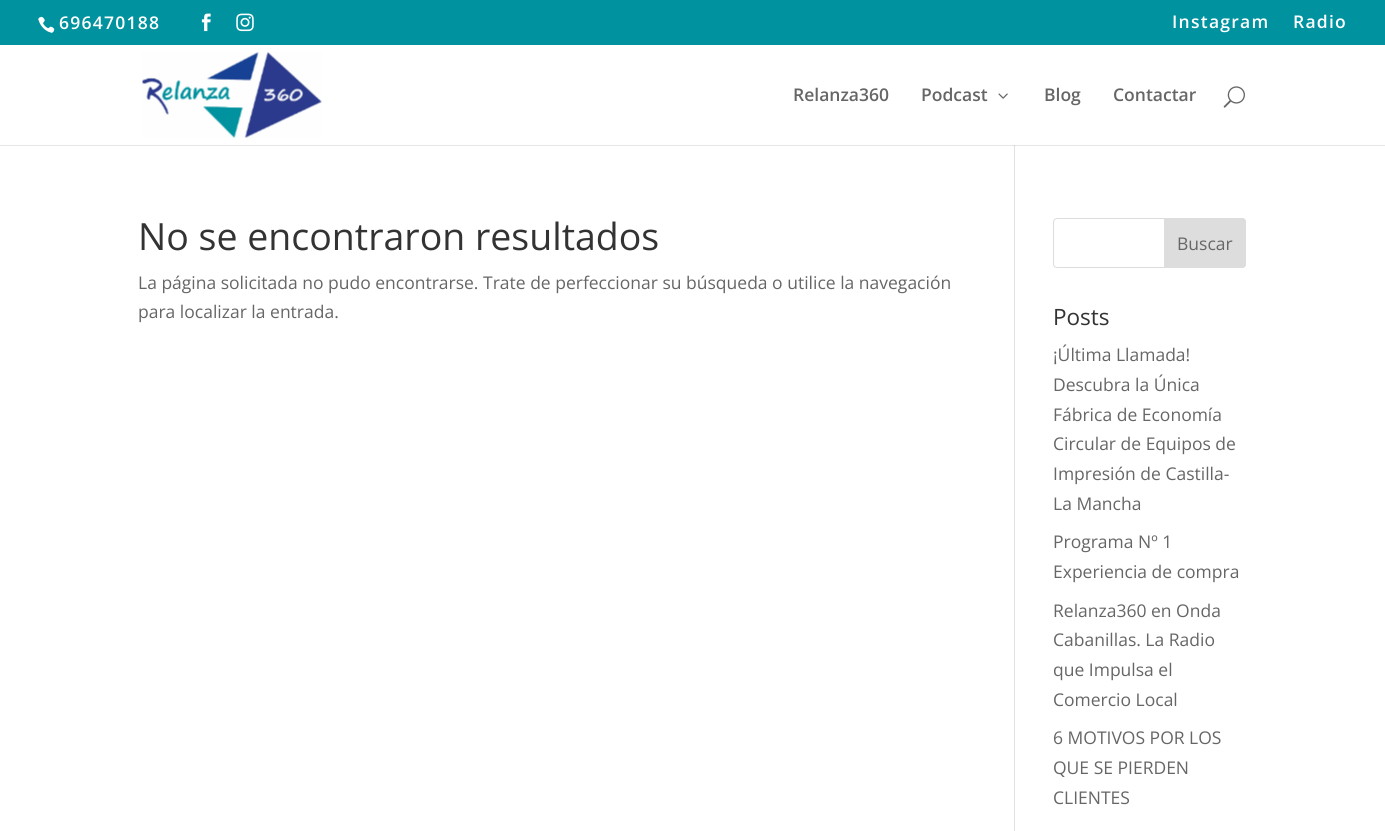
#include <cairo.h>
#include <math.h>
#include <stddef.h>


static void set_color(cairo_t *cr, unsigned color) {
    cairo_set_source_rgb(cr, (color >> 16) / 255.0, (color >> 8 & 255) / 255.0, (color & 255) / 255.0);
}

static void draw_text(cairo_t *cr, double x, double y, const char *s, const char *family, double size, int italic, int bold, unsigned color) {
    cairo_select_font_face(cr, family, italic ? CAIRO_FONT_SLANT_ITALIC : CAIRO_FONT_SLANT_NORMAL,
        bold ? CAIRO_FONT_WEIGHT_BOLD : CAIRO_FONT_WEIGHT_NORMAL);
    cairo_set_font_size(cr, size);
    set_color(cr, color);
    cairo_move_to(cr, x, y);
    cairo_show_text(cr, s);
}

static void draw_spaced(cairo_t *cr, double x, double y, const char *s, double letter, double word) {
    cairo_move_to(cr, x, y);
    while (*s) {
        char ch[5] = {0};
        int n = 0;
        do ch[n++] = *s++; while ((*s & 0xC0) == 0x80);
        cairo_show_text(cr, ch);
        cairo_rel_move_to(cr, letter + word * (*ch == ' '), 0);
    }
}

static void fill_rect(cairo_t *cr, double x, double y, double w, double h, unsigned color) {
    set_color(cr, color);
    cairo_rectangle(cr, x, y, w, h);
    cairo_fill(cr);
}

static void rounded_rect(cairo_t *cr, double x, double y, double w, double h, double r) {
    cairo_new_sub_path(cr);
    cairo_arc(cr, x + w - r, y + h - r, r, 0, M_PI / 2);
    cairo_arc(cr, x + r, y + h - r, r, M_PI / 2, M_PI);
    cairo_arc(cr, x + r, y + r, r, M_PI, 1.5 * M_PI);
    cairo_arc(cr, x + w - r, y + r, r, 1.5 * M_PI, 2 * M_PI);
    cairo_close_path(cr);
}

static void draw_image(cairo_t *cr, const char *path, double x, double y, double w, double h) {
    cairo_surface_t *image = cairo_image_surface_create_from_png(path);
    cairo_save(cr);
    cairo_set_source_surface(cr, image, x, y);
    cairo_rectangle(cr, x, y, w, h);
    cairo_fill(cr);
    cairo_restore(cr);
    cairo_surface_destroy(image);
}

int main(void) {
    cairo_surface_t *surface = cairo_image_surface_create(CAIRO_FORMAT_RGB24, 1385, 831);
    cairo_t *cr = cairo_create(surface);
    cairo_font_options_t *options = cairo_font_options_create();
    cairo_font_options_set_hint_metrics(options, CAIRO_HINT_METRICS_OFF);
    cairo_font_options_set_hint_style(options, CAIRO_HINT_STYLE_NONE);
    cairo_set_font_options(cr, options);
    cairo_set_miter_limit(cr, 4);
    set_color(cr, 0xFFFFFF);
    cairo_paint(cr);
    fill_rect(cr, 0, 145, 1385, 1, 0xE6E6E6);
    fill_rect(cr, 0, 0, 1385, 45, 0x00929F);
    draw_image(cr, "assets/img1.png", 38, 16, 17, 17);
    cairo_select_font_face(cr, "Open Sans SemiBold", CAIRO_FONT_SLANT_NORMAL, CAIRO_FONT_WEIGHT_NORMAL);
    cairo_set_font_size(cr, 17.5);
    set_color(cr, 0xFFFFFF);
    draw_spaced(cr, 59, 29, "696470188", 1.25, 0);
    draw_image(cr, "assets/img2.png", 201, 13, 10, 19);
    draw_image(cr, "assets/img3.png", 236, 13, 18, 19);
    draw_spaced(cr, 1172, 28, "Instagram", 1.25, 0);
    draw_spaced(cr, 1293, 28, "Radio", 1.25, 0);
    draw_image(cr, "assets/img4.png", 142, 52, 180, 86);
    draw_text(cr, 793, 101, "Relanza360", "Open Sans SemiBold", 17.5, 0, 0, 0x666666);
    draw_text(cr, 921, 101, "Podcast", "Open Sans SemiBold", 17.5, 0, 0, 0x666666);
    draw_image(cr, "assets/img5.png", 998, 93, 10, 6);
    draw_text(cr, 1044, 101, "Blog", "Open Sans SemiBold", 17.5, 0, 0, 0x666666);
    draw_text(cr, 1113, 101, "Contactar", "Open Sans SemiBold", 17.5, 0, 0, 0x666666);
    draw_image(cr, "assets/img6.png", 1223, 86, 22, 22);
    fill_rect(cr, 1014, 145, 1, 686, 0xE2E2E2);
    fill_rect(cr, 1014, 145, 1, 1, 0xCBCBCB);
    draw_text(cr, 138, 250, "No se encontraron resultados", "Open Sans", 37.5, 0, 0, 0x333333);
    draw_text(cr, 138, 289, "La página solicitada no pudo encontrarse. Trate de perfeccionar su búsqueda o utilice la navegación", "Open Sans", 17.5, 0, 0, 0x666666);
    draw_text(cr, 138, 318, "para localizar la entrada.", "Open Sans", 17.5, 0, 0, 0x666666);
    rounded_rect(cr, 1053.5, 218.5, 192, 49, 3.5);
    set_color(cr, 0xDDDDDD);
    cairo_set_line_width(cr, 1);
    cairo_stroke(cr);
    cairo_new_path(cr);
    cairo_move_to(cr, 1164.5, 218.5);
    cairo_line_to(cr, 1242, 218.5);
    cairo_curve_to(cr, 1244, 218.5, 1245.5, 220, 1245.5, 222);
    cairo_line_to(cr, 1245.5, 264);
    cairo_curve_to(cr, 1245.5, 266, 1244, 267.5, 1242, 267.5);
    cairo_line_to(cr, 1164.5, 267.5);
    cairo_close_path(cr);
    cairo_fill_preserve(cr);
    cairo_stroke(cr);
    draw_text(cr, 1177, 250, "Buscar", "Open Sans", 17.5, 0, 0, 0x666666);
    draw_text(cr, 1053, 325, "Posts", "Open Sans", 22.5, 0, 0, 0x333333);
    draw_text(cr, 1053, 361, "¡Última Llamada!", "Open Sans", 17.5, 0, 0, 0x666666);
    draw_text(cr, 1053, 391, "Descubra la Única", "Open Sans", 17.5, 0, 0, 0x666666);
    draw_text(cr, 1053, 421, "Fábrica de Economía", "Open Sans", 17.5, 0, 0, 0x666666);
    draw_text(cr, 1053, 450, "Circular de Equipos de", "Open Sans", 17.5, 0, 0, 0x666666);
    draw_text(cr, 1053, 480, "Impresión de Castilla-", "Open Sans", 17.5, 0, 0, 0x666666);
    draw_text(cr, 1053, 510, "La Mancha", "Open Sans", 17.5, 0, 0, 0x666666);
    draw_text(cr, 1053, 548, "Programa Nº 1", "Open Sans", 17.5, 0, 0, 0x666666);
    draw_text(cr, 1053, 578, "Experiencia de compra", "Open Sans", 17.5, 0, 0, 0x666666);
    draw_text(cr, 1053, 617, "Relanza360 en Onda", "Open Sans", 17.5, 0, 0, 0x666666);
    draw_text(cr, 1053, 646, "Cabanillas. La Radio", "Open Sans", 17.5, 0, 0, 0x666666);
    draw_text(cr, 1053, 676, "que Impulsa el", "Open Sans", 17.5, 0, 0, 0x666666);
    draw_text(cr, 1053, 706, "Comercio Local", "Open Sans", 17.5, 0, 0, 0x666666);
    draw_text(cr, 1053, 744, "6 MOTIVOS POR LOS", "Open Sans", 17.5, 0, 0, 0x666666);
    draw_text(cr, 1053, 774, "QUE SE PIERDEN", "Open Sans", 17.5, 0, 0, 0x666666);
    draw_text(cr, 1053, 804, "CLIENTES", "Open Sans", 17.5, 0, 0, 0x666666);
    cairo_surface_write_to_png(surface, "output.png");
    cairo_font_options_destroy(options);
    cairo_destroy(cr);
    cairo_surface_destroy(surface);
    return 0;
}
